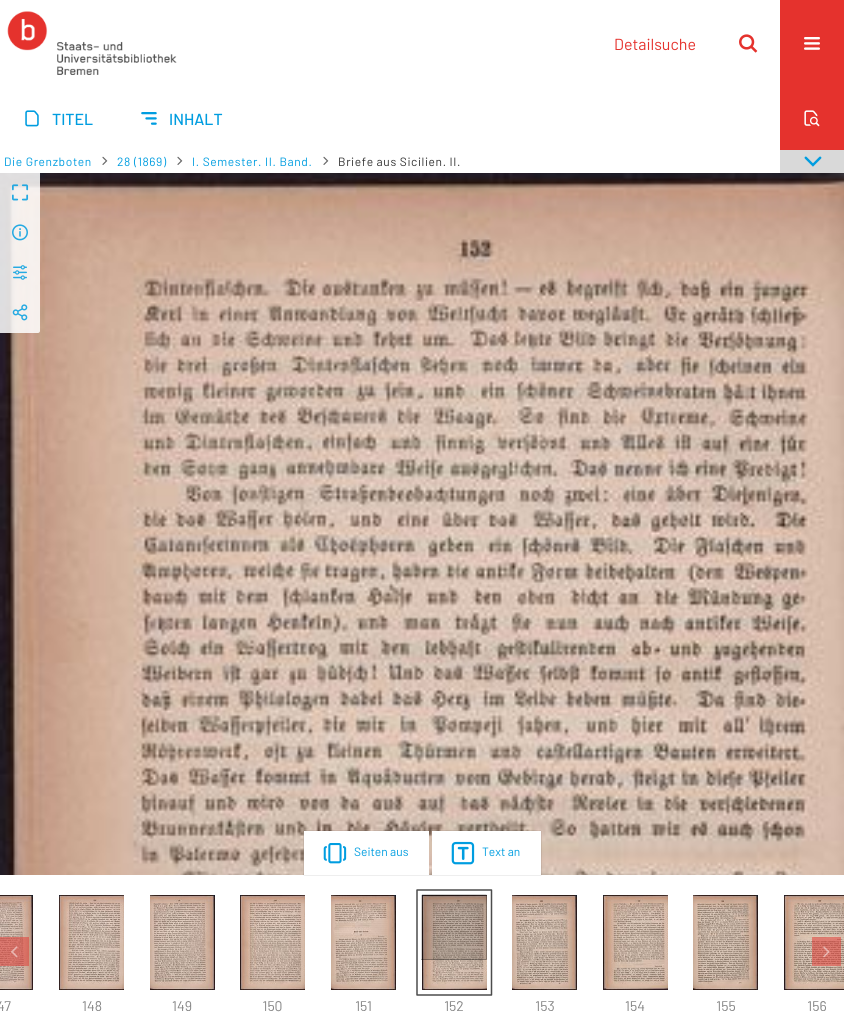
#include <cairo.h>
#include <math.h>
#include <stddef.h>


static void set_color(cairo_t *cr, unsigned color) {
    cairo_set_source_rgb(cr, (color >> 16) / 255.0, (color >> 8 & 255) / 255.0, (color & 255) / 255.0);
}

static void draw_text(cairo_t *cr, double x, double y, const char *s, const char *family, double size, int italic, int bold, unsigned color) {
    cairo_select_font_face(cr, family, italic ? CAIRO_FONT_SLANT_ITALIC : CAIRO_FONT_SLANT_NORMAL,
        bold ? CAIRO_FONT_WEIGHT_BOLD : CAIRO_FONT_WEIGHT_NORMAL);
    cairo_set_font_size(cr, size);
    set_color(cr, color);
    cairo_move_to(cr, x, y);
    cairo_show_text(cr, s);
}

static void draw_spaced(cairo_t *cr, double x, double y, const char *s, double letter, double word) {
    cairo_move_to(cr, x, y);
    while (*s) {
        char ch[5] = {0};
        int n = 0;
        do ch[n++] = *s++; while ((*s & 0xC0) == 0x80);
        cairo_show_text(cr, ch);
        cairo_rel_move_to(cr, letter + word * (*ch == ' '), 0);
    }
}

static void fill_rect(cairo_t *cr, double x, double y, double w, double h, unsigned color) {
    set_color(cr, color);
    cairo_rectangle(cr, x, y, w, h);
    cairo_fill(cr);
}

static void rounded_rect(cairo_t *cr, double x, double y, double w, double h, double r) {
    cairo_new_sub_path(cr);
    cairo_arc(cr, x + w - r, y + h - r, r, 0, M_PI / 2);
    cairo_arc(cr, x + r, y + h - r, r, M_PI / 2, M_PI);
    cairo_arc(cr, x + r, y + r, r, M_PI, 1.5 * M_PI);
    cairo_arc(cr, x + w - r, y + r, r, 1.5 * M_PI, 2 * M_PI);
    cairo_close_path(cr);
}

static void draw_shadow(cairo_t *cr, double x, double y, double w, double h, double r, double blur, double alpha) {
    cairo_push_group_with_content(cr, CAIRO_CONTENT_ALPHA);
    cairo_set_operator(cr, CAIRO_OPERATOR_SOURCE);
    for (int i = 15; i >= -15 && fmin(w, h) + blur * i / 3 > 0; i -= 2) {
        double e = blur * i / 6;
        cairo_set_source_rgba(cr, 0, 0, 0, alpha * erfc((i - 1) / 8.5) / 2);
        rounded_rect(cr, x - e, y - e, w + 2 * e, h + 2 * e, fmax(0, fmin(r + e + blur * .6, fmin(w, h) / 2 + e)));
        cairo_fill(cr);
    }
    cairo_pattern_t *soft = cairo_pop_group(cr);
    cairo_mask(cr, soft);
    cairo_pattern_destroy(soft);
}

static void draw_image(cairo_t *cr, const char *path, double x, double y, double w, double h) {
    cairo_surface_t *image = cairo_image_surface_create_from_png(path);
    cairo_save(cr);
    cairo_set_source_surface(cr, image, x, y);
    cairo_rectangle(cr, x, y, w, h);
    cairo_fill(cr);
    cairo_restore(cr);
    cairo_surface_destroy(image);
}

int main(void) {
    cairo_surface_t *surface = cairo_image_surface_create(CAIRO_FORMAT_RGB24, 844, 1015);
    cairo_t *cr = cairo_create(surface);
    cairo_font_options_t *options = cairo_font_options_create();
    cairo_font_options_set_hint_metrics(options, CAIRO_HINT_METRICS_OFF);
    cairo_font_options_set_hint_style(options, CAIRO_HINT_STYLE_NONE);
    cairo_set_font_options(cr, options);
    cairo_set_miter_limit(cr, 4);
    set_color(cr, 0xFFFFFF);
    cairo_paint(cr);
    draw_image(cr, "assets/img1.png", 7, 11, 170, 64);
    draw_text(cr, 614, 50, "Detailsuche", "Barlow", 16, 0, 0, 0xE5322D);
    draw_image(cr, "assets/img2.png", 739, 34, 19, 19);
    fill_rect(cr, 780, 0, 64, 150, 0xE5322D);
    draw_image(cr, "assets/img3.png", 804, 37, 16, 13);
    draw_image(cr, "assets/img4.png", 25, 110, 14, 17);
    draw_text(cr, 52, 125, "TITEL", "Barlow Medium", 16, 0, 0, 0x009DE0);
    draw_image(cr, "assets/img5.png", 141, 112, 16, 13);
    draw_text(cr, 169, 125, "INHALT", "Barlow Medium", 16, 0, 0, 0x009DE0);
    draw_image(cr, "assets/img6.png", 804, 110, 16, 17);
    cairo_select_font_face(cr, "Barlow", CAIRO_FONT_SLANT_NORMAL, CAIRO_FONT_WEIGHT_NORMAL);
    cairo_set_font_size(cr, 12);
    draw_spaced(cr, 4, 166, "Die Grenzboten", 0.6, 0);
    draw_image(cr, "assets/img7.png", 102, 156, 6, 9);
    draw_spaced(cr, 117, 166, "28 (1869)", 0.6, 0);
    draw_image(cr, "assets/img7.png", 177, 156, 6, 9);
    draw_spaced(cr, 192, 166, "I. Semester. II. Band.", 0.6, 0);
    draw_image(cr, "assets/img7.png", 323, 156, 6, 9);
    set_color(cr, 0x333333);
    draw_spaced(cr, 338, 166, "Briefe aus Sicilien. II.", 0.6, 0);
    fill_rect(cr, 780, 150, 64, 23, 0xD9D9D9);
    draw_image(cr, "assets/img8.png", 804, 156, 18, 11);
    draw_image(cr, "assets/img9.png", 0, 173, 844, 702);
    cairo_set_source_rgba(cr, 1, 1, 1, 0.85);
    cairo_rectangle(cr, 0, 173, 40, 40);
    cairo_fill(cr);
    draw_image(cr, "assets/img10.png", 12, 184, 17, 17);
    cairo_rectangle(cr, 0, 213, 40, 40);
    cairo_fill(cr);
    draw_image(cr, "assets/img11.png", 12, 224, 16, 17);
    cairo_rectangle(cr, 0, 253, 40, 40);
    cairo_fill(cr);
    draw_image(cr, "assets/img12.png", 13, 265, 14, 15);
    cairo_new_path(cr);
    cairo_move_to(cr, 0, 293);
    cairo_line_to(cr, 40, 293);
    cairo_line_to(cr, 40, 331);
    cairo_curve_to(cr, 40, 332, 39, 333, 38, 333);
    cairo_line_to(cr, 0, 333);
    cairo_close_path(cr);
    cairo_fill(cr);
    draw_image(cr, "assets/img13.png", 12, 304, 16, 17);
    cairo_save(cr);
    cairo_set_fill_rule(cr, CAIRO_FILL_RULE_EVEN_ODD);
    cairo_new_path(cr);
    cairo_move_to(cr, 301, 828);
    cairo_line_to(cr, 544, 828);
    cairo_line_to(cr, 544, 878);
    cairo_line_to(cr, 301, 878);
    cairo_close_path(cr);
    cairo_move_to(cr, 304, 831);
    cairo_line_to(cr, 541, 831);
    cairo_line_to(cr, 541, 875);
    cairo_line_to(cr, 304, 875);
    cairo_close_path(cr);
    cairo_clip(cr);
    set_color(cr, 0x000000);
    draw_shadow(cr, 304, 831, 237, 44, 0, 0.5, 0.27);
    cairo_restore(cr);
    fill_rect(cr, 304, 831, 125, 44, 0xFFFFFF);
    draw_image(cr, "assets/img14.png", 323, 843, 24, 21);
    draw_text(cr, 354, 856, "Seiten aus", "Barlow", 12, 0, 0, 0x009DE0);
    fill_rect(cr, 432, 831, 109, 44, 0xFFFFFF);
    draw_image(cr, "assets/img15.png", 451, 841, 24, 24);
    draw_text(cr, 482, 856, "Text an", "Barlow", 12, 0, 0, 0x009DE0);
    draw_image(cr, "assets/img16.png", 0, 889, 844, 123);
    cairo_set_source_rgba(cr, 0.898, 0.196, 0.176, 0.5);
    cairo_rectangle(cr, 0, 937, 29, 29);
    cairo_fill(cr);
    draw_image(cr, "assets/img17.png", 11, 946, 7, 12);
    cairo_rectangle(cr, 812, 937, 29, 29);
    cairo_fill(cr);
    draw_image(cr, "assets/img18.png", 823, 946, 7, 12);
    cairo_surface_write_to_png(surface, "output.png");
    cairo_font_options_destroy(options);
    cairo_destroy(cr);
    cairo_surface_destroy(surface);
    return 0;
}
